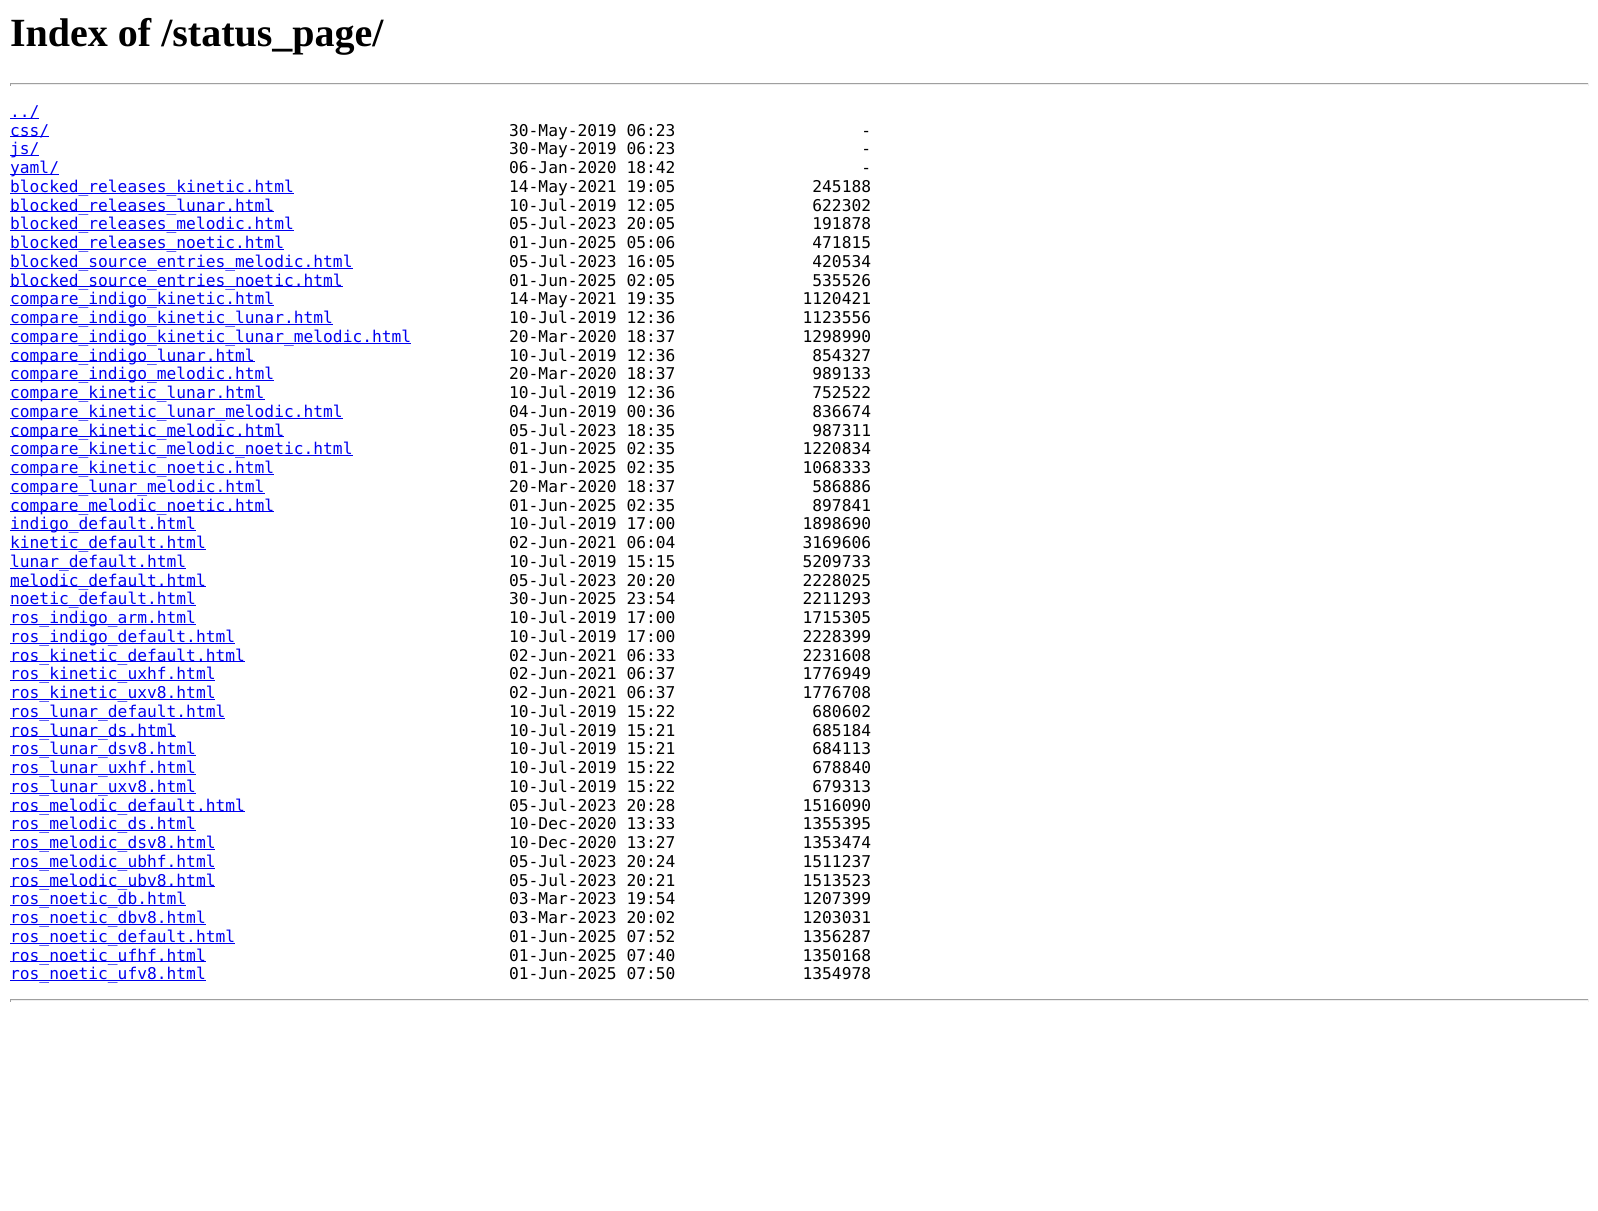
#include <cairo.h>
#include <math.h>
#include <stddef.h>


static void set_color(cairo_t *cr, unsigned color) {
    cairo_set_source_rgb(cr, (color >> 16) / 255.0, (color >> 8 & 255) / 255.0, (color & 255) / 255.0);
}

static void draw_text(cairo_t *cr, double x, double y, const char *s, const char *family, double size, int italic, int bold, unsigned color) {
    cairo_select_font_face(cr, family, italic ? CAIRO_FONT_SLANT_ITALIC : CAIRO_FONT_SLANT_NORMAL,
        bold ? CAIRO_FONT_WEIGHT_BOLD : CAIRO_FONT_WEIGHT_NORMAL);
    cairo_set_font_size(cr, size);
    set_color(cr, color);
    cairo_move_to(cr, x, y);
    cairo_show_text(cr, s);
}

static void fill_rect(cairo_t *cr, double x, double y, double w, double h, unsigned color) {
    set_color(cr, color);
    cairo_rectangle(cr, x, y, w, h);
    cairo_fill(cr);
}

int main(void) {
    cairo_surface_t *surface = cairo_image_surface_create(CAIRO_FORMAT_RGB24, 1598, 1211);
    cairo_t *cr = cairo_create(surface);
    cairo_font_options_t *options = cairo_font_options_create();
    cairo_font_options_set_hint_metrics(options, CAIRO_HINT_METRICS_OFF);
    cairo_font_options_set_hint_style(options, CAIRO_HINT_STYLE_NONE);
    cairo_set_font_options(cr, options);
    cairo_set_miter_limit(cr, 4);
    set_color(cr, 0xFFFFFF);
    cairo_paint(cr);
    draw_text(cr, 10, 46, "Index of /status_page/", "Liberation Serif", 40, 0, 1, 0x000000);
    fill_rect(cr, 10, 83, 1579, 1, 0x9F9F9F);
    fill_rect(cr, 1588, 83, 1, 3, 0xEEEEEE);
    fill_rect(cr, 10, 84, 1579, 1, 0xEEEEEE);
    fill_rect(cr, 10, 83, 1, 3, 0x9F9F9F);
    fill_rect(cr, 10, 118, 29, 1, 0x0000EE);
    draw_text(cr, 10, 117, "../", "DejaVu Sans Mono", 16.25, 0, 0, 0x0000EE);
    fill_rect(cr, 10, 136, 39, 1, 0x0000EE);
    draw_text(cr, 10, 136, "css/", "DejaVu Sans Mono", 16.25, 0, 0, 0x0000EE);
    draw_text(cr, 509, 136, "30-May-2019 06:23                   -", "DejaVu Sans Mono", 16.25, 0, 0, 0x000000);
    fill_rect(cr, 10, 155, 29, 1, 0x0000EE);
    draw_text(cr, 10, 154, "js/", "DejaVu Sans Mono", 16.25, 0, 0, 0x0000EE);
    draw_text(cr, 509, 154, "30-May-2019 06:23                   -", "DejaVu Sans Mono", 16.25, 0, 0, 0x000000);
    fill_rect(cr, 10, 174, 49, 1, 0x0000EE);
    draw_text(cr, 10, 173, "yaml/", "DejaVu Sans Mono", 16.25, 0, 0, 0x0000EE);
    draw_text(cr, 509, 173, "06-Jan-2020 18:42                   -", "DejaVu Sans Mono", 16.25, 0, 0, 0x000000);
    fill_rect(cr, 10, 193, 284, 1, 0x0000EE);
    draw_text(cr, 10, 192, "blocked_releases_kinetic.html", "DejaVu Sans Mono", 16.25, 0, 0, 0x0000EE);
    draw_text(cr, 509, 192, "14-May-2021 19:05              245188", "DejaVu Sans Mono", 16.25, 0, 0, 0x000000);
    fill_rect(cr, 10, 211, 264, 1, 0x0000EE);
    draw_text(cr, 10, 211, "blocked_releases_lunar.html", "DejaVu Sans Mono", 16.25, 0, 0, 0x0000EE);
    draw_text(cr, 509, 211, "10-Jul-2019 12:05              622302", "DejaVu Sans Mono", 16.25, 0, 0, 0x000000);
    fill_rect(cr, 10, 230, 284, 1, 0x0000EE);
    draw_text(cr, 10, 229, "blocked_releases_melodic.html", "DejaVu Sans Mono", 16.25, 0, 0, 0x0000EE);
    draw_text(cr, 509, 229, "05-Jul-2023 20:05              191878", "DejaVu Sans Mono", 16.25, 0, 0, 0x000000);
    fill_rect(cr, 10, 249, 274, 1, 0x0000EE);
    draw_text(cr, 10, 248, "blocked_releases_noetic.html", "DejaVu Sans Mono", 16.25, 0, 0, 0x0000EE);
    draw_text(cr, 509, 248, "01-Jun-2025 05:06              471815", "DejaVu Sans Mono", 16.25, 0, 0, 0x000000);
    fill_rect(cr, 10, 268, 343, 1, 0x0000EE);
    draw_text(cr, 10, 267, "blocked_source_entries_melodic.html", "DejaVu Sans Mono", 16.25, 0, 0, 0x0000EE);
    draw_text(cr, 509, 267, "05-Jul-2023 16:05              420534", "DejaVu Sans Mono", 16.25, 0, 0, 0x000000);
    fill_rect(cr, 10, 286, 333, 1, 0x0000EE);
    draw_text(cr, 10, 286, "blocked_source_entries_noetic.html", "DejaVu Sans Mono", 16.25, 0, 0, 0x0000EE);
    draw_text(cr, 509, 286, "01-Jun-2025 02:05              535526", "DejaVu Sans Mono", 16.25, 0, 0, 0x000000);
    fill_rect(cr, 10, 305, 264, 1, 0x0000EE);
    draw_text(cr, 10, 304, "compare_indigo_kinetic.html", "DejaVu Sans Mono", 16.25, 0, 0, 0x0000EE);
    draw_text(cr, 509, 304, "14-May-2021 19:35             1120421", "DejaVu Sans Mono", 16.25, 0, 0, 0x000000);
    fill_rect(cr, 10, 324, 323, 1, 0x0000EE);
    draw_text(cr, 10, 323, "compare_indigo_kinetic_lunar.html", "DejaVu Sans Mono", 16.25, 0, 0, 0x0000EE);
    draw_text(cr, 509, 323, "10-Jul-2019 12:36             1123556", "DejaVu Sans Mono", 16.25, 0, 0, 0x000000);
    fill_rect(cr, 10, 343, 401, 1, 0x0000EE);
    draw_text(cr, 10, 342, "compare_indigo_kinetic_lunar_melodic.html", "DejaVu Sans Mono", 16.25, 0, 0, 0x0000EE);
    draw_text(cr, 509, 342, "20-Mar-2020 18:37             1298990", "DejaVu Sans Mono", 16.25, 0, 0, 0x000000);
    fill_rect(cr, 10, 361, 245, 1, 0x0000EE);
    draw_text(cr, 10, 361, "compare_indigo_lunar.html", "DejaVu Sans Mono", 16.25, 0, 0, 0x0000EE);
    draw_text(cr, 509, 361, "10-Jul-2019 12:36              854327", "DejaVu Sans Mono", 16.25, 0, 0, 0x000000);
    fill_rect(cr, 10, 380, 264, 1, 0x0000EE);
    draw_text(cr, 10, 379, "compare_indigo_melodic.html", "DejaVu Sans Mono", 16.25, 0, 0, 0x0000EE);
    draw_text(cr, 509, 379, "20-Mar-2020 18:37              989133", "DejaVu Sans Mono", 16.25, 0, 0, 0x000000);
    fill_rect(cr, 10, 399, 255, 1, 0x0000EE);
    draw_text(cr, 10, 398, "compare_kinetic_lunar.html", "DejaVu Sans Mono", 16.25, 0, 0, 0x0000EE);
    draw_text(cr, 509, 398, "10-Jul-2019 12:36              752522", "DejaVu Sans Mono", 16.25, 0, 0, 0x000000);
    fill_rect(cr, 10, 418, 333, 1, 0x0000EE);
    draw_text(cr, 10, 417, "compare_kinetic_lunar_melodic.html", "DejaVu Sans Mono", 16.25, 0, 0, 0x0000EE);
    draw_text(cr, 509, 417, "04-Jun-2019 00:36              836674", "DejaVu Sans Mono", 16.25, 0, 0, 0x000000);
    fill_rect(cr, 10, 436, 274, 1, 0x0000EE);
    draw_text(cr, 10, 436, "compare_kinetic_melodic.html", "DejaVu Sans Mono", 16.25, 0, 0, 0x0000EE);
    draw_text(cr, 509, 436, "05-Jul-2023 18:35              987311", "DejaVu Sans Mono", 16.25, 0, 0, 0x000000);
    fill_rect(cr, 10, 455, 343, 1, 0x0000EE);
    draw_text(cr, 10, 454, "compare_kinetic_melodic_noetic.html", "DejaVu Sans Mono", 16.25, 0, 0, 0x0000EE);
    draw_text(cr, 509, 454, "01-Jun-2025 02:35             1220834", "DejaVu Sans Mono", 16.25, 0, 0, 0x000000);
    fill_rect(cr, 10, 474, 264, 1, 0x0000EE);
    draw_text(cr, 10, 473, "compare_kinetic_noetic.html", "DejaVu Sans Mono", 16.25, 0, 0, 0x0000EE);
    draw_text(cr, 509, 473, "01-Jun-2025 02:35             1068333", "DejaVu Sans Mono", 16.25, 0, 0, 0x000000);
    fill_rect(cr, 10, 493, 255, 1, 0x0000EE);
    draw_text(cr, 10, 492, "compare_lunar_melodic.html", "DejaVu Sans Mono", 16.25, 0, 0, 0x0000EE);
    draw_text(cr, 509, 492, "20-Mar-2020 18:37              586886", "DejaVu Sans Mono", 16.25, 0, 0, 0x000000);
    fill_rect(cr, 10, 511, 264, 1, 0x0000EE);
    draw_text(cr, 10, 511, "compare_melodic_noetic.html", "DejaVu Sans Mono", 16.25, 0, 0, 0x0000EE);
    draw_text(cr, 509, 511, "01-Jun-2025 02:35              897841", "DejaVu Sans Mono", 16.25, 0, 0, 0x000000);
    fill_rect(cr, 10, 530, 186, 1, 0x0000EE);
    draw_text(cr, 10, 529, "indigo_default.html", "DejaVu Sans Mono", 16.25, 0, 0, 0x0000EE);
    draw_text(cr, 509, 529, "10-Jul-2019 17:00             1898690", "DejaVu Sans Mono", 16.25, 0, 0, 0x000000);
    fill_rect(cr, 10, 549, 196, 1, 0x0000EE);
    draw_text(cr, 10, 548, "kinetic_default.html", "DejaVu Sans Mono", 16.25, 0, 0, 0x0000EE);
    draw_text(cr, 509, 548, "02-Jun-2021 06:04             3169606", "DejaVu Sans Mono", 16.25, 0, 0, 0x000000);
    fill_rect(cr, 10, 568, 176, 1, 0x0000EE);
    draw_text(cr, 10, 567, "lunar_default.html", "DejaVu Sans Mono", 16.25, 0, 0, 0x0000EE);
    draw_text(cr, 509, 567, "10-Jul-2019 15:15             5209733", "DejaVu Sans Mono", 16.25, 0, 0, 0x000000);
    fill_rect(cr, 10, 586, 196, 1, 0x0000EE);
    draw_text(cr, 10, 586, "melodic_default.html", "DejaVu Sans Mono", 16.25, 0, 0, 0x0000EE);
    draw_text(cr, 509, 586, "05-Jul-2023 20:20             2228025", "DejaVu Sans Mono", 16.25, 0, 0, 0x000000);
    fill_rect(cr, 10, 605, 186, 1, 0x0000EE);
    draw_text(cr, 10, 604, "noetic_default.html", "DejaVu Sans Mono", 16.25, 0, 0, 0x0000EE);
    draw_text(cr, 509, 604, "30-Jun-2025 23:54             2211293", "DejaVu Sans Mono", 16.25, 0, 0, 0x000000);
    fill_rect(cr, 10, 624, 186, 1, 0x0000EE);
    draw_text(cr, 10, 623, "ros_indigo_arm.html", "DejaVu Sans Mono", 16.25, 0, 0, 0x0000EE);
    draw_text(cr, 509, 623, "10-Jul-2019 17:00             1715305", "DejaVu Sans Mono", 16.25, 0, 0, 0x000000);
    fill_rect(cr, 10, 643, 225, 1, 0x0000EE);
    draw_text(cr, 10, 642, "ros_indigo_default.html", "DejaVu Sans Mono", 16.25, 0, 0, 0x0000EE);
    draw_text(cr, 509, 642, "10-Jul-2019 17:00             2228399", "DejaVu Sans Mono", 16.25, 0, 0, 0x000000);
    fill_rect(cr, 10, 661, 235, 1, 0x0000EE);
    draw_text(cr, 10, 661, "ros_kinetic_default.html", "DejaVu Sans Mono", 16.25, 0, 0, 0x0000EE);
    draw_text(cr, 509, 661, "02-Jun-2021 06:33             2231608", "DejaVu Sans Mono", 16.25, 0, 0, 0x000000);
    fill_rect(cr, 10, 680, 205, 1, 0x0000EE);
    draw_text(cr, 10, 679, "ros_kinetic_uxhf.html", "DejaVu Sans Mono", 16.25, 0, 0, 0x0000EE);
    draw_text(cr, 509, 679, "02-Jun-2021 06:37             1776949", "DejaVu Sans Mono", 16.25, 0, 0, 0x000000);
    fill_rect(cr, 10, 699, 205, 1, 0x0000EE);
    draw_text(cr, 10, 698, "ros_kinetic_uxv8.html", "DejaVu Sans Mono", 16.25, 0, 0, 0x0000EE);
    draw_text(cr, 509, 698, "02-Jun-2021 06:37             1776708", "DejaVu Sans Mono", 16.25, 0, 0, 0x000000);
    fill_rect(cr, 10, 718, 215, 1, 0x0000EE);
    draw_text(cr, 10, 717, "ros_lunar_default.html", "DejaVu Sans Mono", 16.25, 0, 0, 0x0000EE);
    draw_text(cr, 509, 717, "10-Jul-2019 15:22              680602", "DejaVu Sans Mono", 16.25, 0, 0, 0x000000);
    fill_rect(cr, 10, 736, 166, 1, 0x0000EE);
    draw_text(cr, 10, 736, "ros_lunar_ds.html", "DejaVu Sans Mono", 16.25, 0, 0, 0x0000EE);
    draw_text(cr, 509, 736, "10-Jul-2019 15:21              685184", "DejaVu Sans Mono", 16.25, 0, 0, 0x000000);
    fill_rect(cr, 10, 755, 186, 1, 0x0000EE);
    draw_text(cr, 10, 754, "ros_lunar_dsv8.html", "DejaVu Sans Mono", 16.25, 0, 0, 0x0000EE);
    draw_text(cr, 509, 754, "10-Jul-2019 15:21              684113", "DejaVu Sans Mono", 16.25, 0, 0, 0x000000);
    fill_rect(cr, 10, 774, 186, 1, 0x0000EE);
    draw_text(cr, 10, 773, "ros_lunar_uxhf.html", "DejaVu Sans Mono", 16.25, 0, 0, 0x0000EE);
    draw_text(cr, 509, 773, "10-Jul-2019 15:22              678840", "DejaVu Sans Mono", 16.25, 0, 0, 0x000000);
    fill_rect(cr, 10, 793, 186, 1, 0x0000EE);
    draw_text(cr, 10, 792, "ros_lunar_uxv8.html", "DejaVu Sans Mono", 16.25, 0, 0, 0x0000EE);
    draw_text(cr, 509, 792, "10-Jul-2019 15:22              679313", "DejaVu Sans Mono", 16.25, 0, 0, 0x000000);
    fill_rect(cr, 10, 811, 235, 1, 0x0000EE);
    draw_text(cr, 10, 811, "ros_melodic_default.html", "DejaVu Sans Mono", 16.25, 0, 0, 0x0000EE);
    draw_text(cr, 509, 811, "05-Jul-2023 20:28             1516090", "DejaVu Sans Mono", 16.25, 0, 0, 0x000000);
    fill_rect(cr, 10, 830, 186, 1, 0x0000EE);
    draw_text(cr, 10, 829, "ros_melodic_ds.html", "DejaVu Sans Mono", 16.25, 0, 0, 0x0000EE);
    draw_text(cr, 509, 829, "10-Dec-2020 13:33             1355395", "DejaVu Sans Mono", 16.25, 0, 0, 0x000000);
    fill_rect(cr, 10, 849, 205, 1, 0x0000EE);
    draw_text(cr, 10, 848, "ros_melodic_dsv8.html", "DejaVu Sans Mono", 16.25, 0, 0, 0x0000EE);
    draw_text(cr, 509, 848, "10-Dec-2020 13:27             1353474", "DejaVu Sans Mono", 16.25, 0, 0, 0x000000);
    fill_rect(cr, 10, 868, 205, 1, 0x0000EE);
    draw_text(cr, 10, 867, "ros_melodic_ubhf.html", "DejaVu Sans Mono", 16.25, 0, 0, 0x0000EE);
    draw_text(cr, 509, 867, "05-Jul-2023 20:24             1511237", "DejaVu Sans Mono", 16.25, 0, 0, 0x000000);
    fill_rect(cr, 10, 886, 205, 1, 0x0000EE);
    draw_text(cr, 10, 886, "ros_melodic_ubv8.html", "DejaVu Sans Mono", 16.25, 0, 0, 0x0000EE);
    draw_text(cr, 509, 886, "05-Jul-2023 20:21             1513523", "DejaVu Sans Mono", 16.25, 0, 0, 0x000000);
    fill_rect(cr, 10, 905, 176, 1, 0x0000EE);
    draw_text(cr, 10, 904, "ros_noetic_db.html", "DejaVu Sans Mono", 16.25, 0, 0, 0x0000EE);
    draw_text(cr, 509, 904, "03-Mar-2023 19:54             1207399", "DejaVu Sans Mono", 16.25, 0, 0, 0x000000);
    fill_rect(cr, 10, 924, 196, 1, 0x0000EE);
    draw_text(cr, 10, 923, "ros_noetic_dbv8.html", "DejaVu Sans Mono", 16.25, 0, 0, 0x0000EE);
    draw_text(cr, 509, 923, "03-Mar-2023 20:02             1203031", "DejaVu Sans Mono", 16.25, 0, 0, 0x000000);
    fill_rect(cr, 10, 943, 225, 1, 0x0000EE);
    draw_text(cr, 10, 942, "ros_noetic_default.html", "DejaVu Sans Mono", 16.25, 0, 0, 0x0000EE);
    draw_text(cr, 509, 942, "01-Jun-2025 07:52             1356287", "DejaVu Sans Mono", 16.25, 0, 0, 0x000000);
    fill_rect(cr, 10, 961, 196, 1, 0x0000EE);
    draw_text(cr, 10, 961, "ros_noetic_ufhf.html", "DejaVu Sans Mono", 16.25, 0, 0, 0x0000EE);
    draw_text(cr, 509, 961, "01-Jun-2025 07:40             1350168", "DejaVu Sans Mono", 16.25, 0, 0, 0x000000);
    fill_rect(cr, 10, 980, 196, 1, 0x0000EE);
    draw_text(cr, 10, 979, "ros_noetic_ufv8.html", "DejaVu Sans Mono", 16.25, 0, 0, 0x0000EE);
    draw_text(cr, 509, 979, "01-Jun-2025 07:50             1354978", "DejaVu Sans Mono", 16.25, 0, 0, 0x000000);
    fill_rect(cr, 10, 999, 1579, 1, 0x9F9F9F);
    fill_rect(cr, 1588, 999, 1, 3, 0xEEEEEE);
    fill_rect(cr, 10, 1000, 1579, 1, 0xEEEEEE);
    fill_rect(cr, 10, 999, 1, 3, 0x9F9F9F);
    cairo_surface_write_to_png(surface, "output.png");
    cairo_font_options_destroy(options);
    cairo_destroy(cr);
    cairo_surface_destroy(surface);
    return 0;
}
